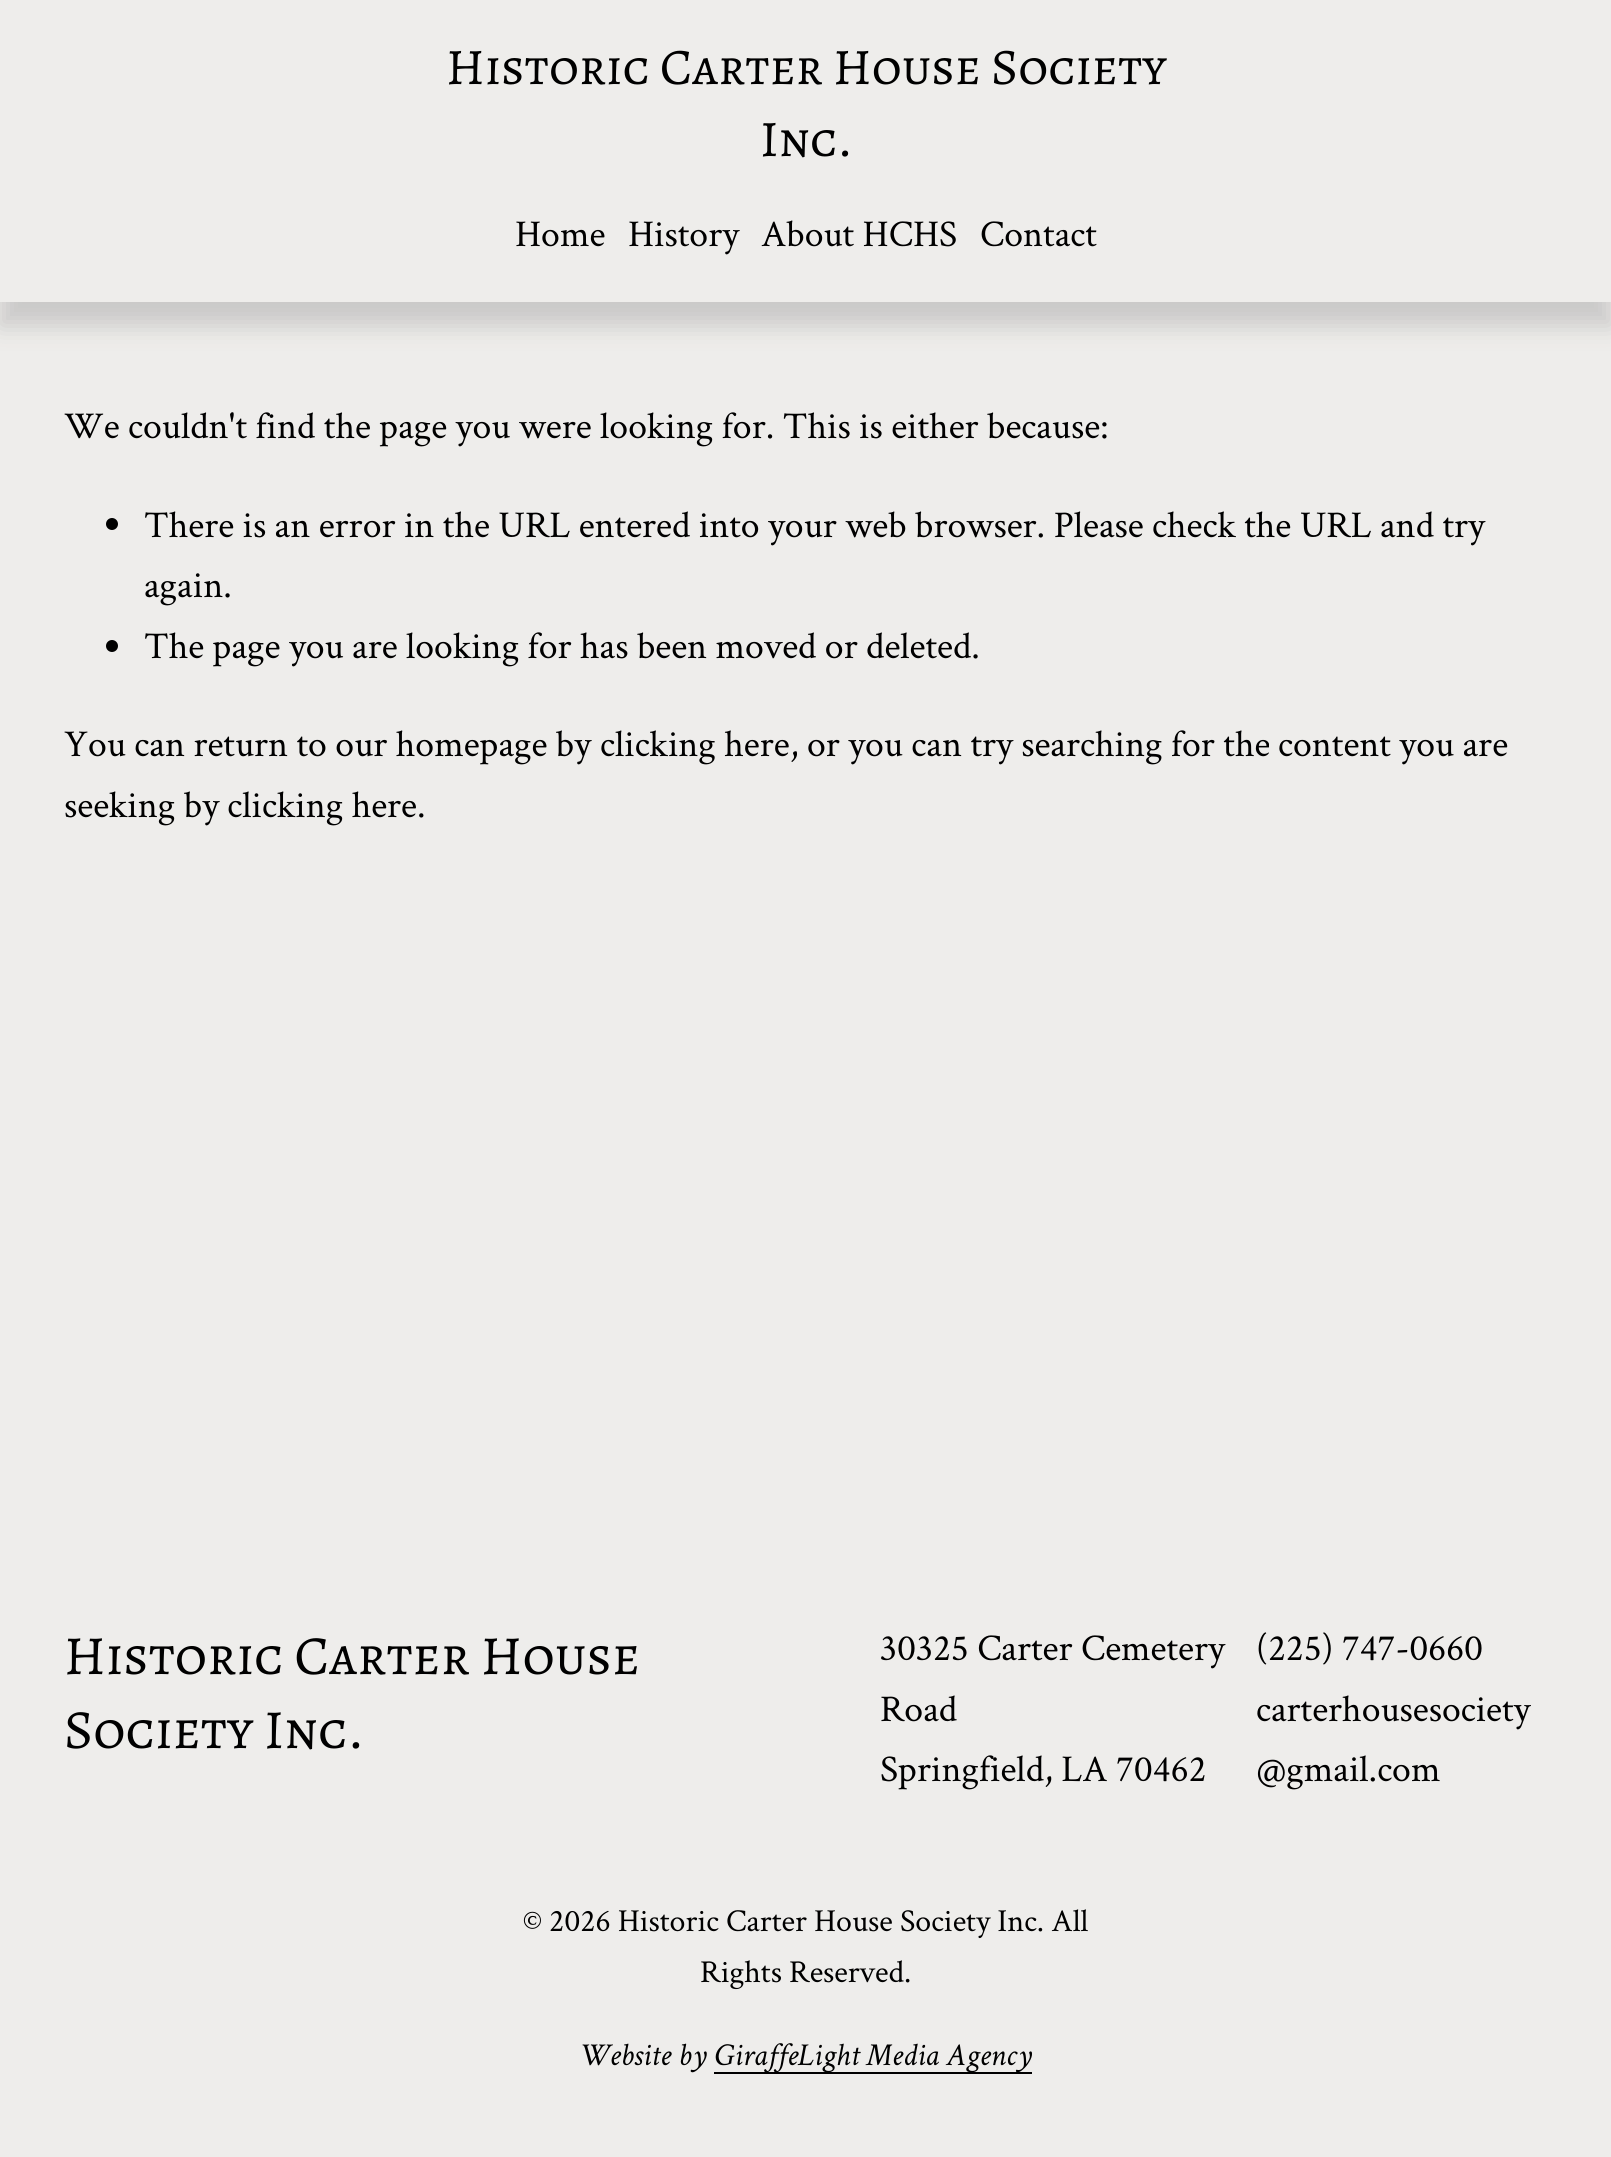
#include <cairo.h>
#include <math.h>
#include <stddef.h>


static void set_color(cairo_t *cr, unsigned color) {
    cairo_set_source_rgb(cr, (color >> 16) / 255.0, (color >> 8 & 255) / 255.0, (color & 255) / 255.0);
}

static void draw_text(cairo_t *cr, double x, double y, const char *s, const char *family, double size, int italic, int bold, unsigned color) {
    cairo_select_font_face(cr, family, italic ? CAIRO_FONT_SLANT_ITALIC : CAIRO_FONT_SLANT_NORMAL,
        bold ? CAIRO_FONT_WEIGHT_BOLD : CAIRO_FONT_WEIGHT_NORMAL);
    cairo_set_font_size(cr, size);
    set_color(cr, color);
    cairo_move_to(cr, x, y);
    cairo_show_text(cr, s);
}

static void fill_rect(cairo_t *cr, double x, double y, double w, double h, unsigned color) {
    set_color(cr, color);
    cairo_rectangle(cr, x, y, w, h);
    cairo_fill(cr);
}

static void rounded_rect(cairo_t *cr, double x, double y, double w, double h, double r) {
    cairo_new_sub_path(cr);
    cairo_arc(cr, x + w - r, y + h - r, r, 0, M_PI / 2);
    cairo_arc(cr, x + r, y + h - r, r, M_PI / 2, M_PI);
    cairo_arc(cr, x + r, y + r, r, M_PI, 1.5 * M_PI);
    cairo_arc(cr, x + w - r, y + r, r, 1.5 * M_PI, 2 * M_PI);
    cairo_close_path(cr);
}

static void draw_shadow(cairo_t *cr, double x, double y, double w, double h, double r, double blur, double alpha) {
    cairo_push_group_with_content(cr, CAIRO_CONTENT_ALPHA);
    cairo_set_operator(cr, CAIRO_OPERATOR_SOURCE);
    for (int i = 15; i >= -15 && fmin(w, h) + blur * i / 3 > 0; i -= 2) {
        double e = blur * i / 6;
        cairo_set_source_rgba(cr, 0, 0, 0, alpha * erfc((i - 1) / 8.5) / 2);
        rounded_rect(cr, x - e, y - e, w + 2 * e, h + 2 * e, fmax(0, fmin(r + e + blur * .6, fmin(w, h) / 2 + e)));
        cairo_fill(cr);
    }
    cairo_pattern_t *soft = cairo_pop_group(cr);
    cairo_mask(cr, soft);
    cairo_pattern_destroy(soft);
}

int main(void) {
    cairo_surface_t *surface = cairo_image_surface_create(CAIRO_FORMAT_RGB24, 1611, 2157);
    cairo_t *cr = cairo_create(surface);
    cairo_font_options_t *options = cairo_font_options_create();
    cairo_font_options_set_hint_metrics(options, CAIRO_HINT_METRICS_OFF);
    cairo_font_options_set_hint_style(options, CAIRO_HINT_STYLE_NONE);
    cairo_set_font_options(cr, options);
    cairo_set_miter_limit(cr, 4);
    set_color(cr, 0xEEEDEB);
    cairo_paint(cr);
    cairo_save(cr);
    cairo_rectangle(cr, 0, 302, 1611, 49);
    cairo_clip(cr);
    set_color(cr, 0xCAC9C8);
    draw_shadow(cr, 0, 24, 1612, 302, 0, 12, 1);
    cairo_restore(cr);
    draw_text(cr, 446, 84, "Historic Carter House Society", "Alegreya SC", 51.3, 0, 0, 0x000000);
    draw_text(cr, 760, 156, "Inc.", "Alegreya SC", 51.3, 0, 0, 0x000000);
    draw_text(cr, 515, 246, "Home", "Crimson Text", 37.8, 0, 0, 0x000000);
    draw_text(cr, 628, 246, "History", "Crimson Text", 37.8, 0, 0, 0x000000);
    draw_text(cr, 761, 246, "About HCHS", "Crimson Text", 37.8, 0, 0, 0x000000);
    draw_text(cr, 980, 246, "Contact", "Crimson Text", 37.8, 0, 0, 0x000000);
    draw_text(cr, 64, 438, "We couldn't find the page you were looking for. This is either because:", "Crimson Text", 37.8, 0, 0, 0x000000);
    cairo_new_path(cr);
    cairo_arc(cr, 112, 524, 6, 0, 2 * M_PI);
    cairo_fill(cr);
    draw_text(cr, 144, 537, "There is an error in the URL entered into your web browser. Please check the URL and try", "Crimson Text", 37.8, 0, 0, 0x000000);
    draw_text(cr, 144, 597, "again.", "Crimson Text", 37.8, 0, 0, 0x000000);
    cairo_new_path(cr);
    cairo_arc(cr, 112, 646, 6, 0, 2 * M_PI);
    cairo_fill(cr);
    draw_text(cr, 144, 658, "The page you are looking for has been moved or deleted.", "Crimson Text", 37.8, 0, 0, 0x000000);
    draw_text(cr, 64, 756, "You can return to our homepage by", "Crimson Text", 37.8, 0, 0, 0x000000);
    draw_text(cr, 600, 756, "clicking here, or you can try searching for the", "Crimson Text", 37.8, 0, 0, 0x000000);
    draw_text(cr, 1278, 756, "content you are", "Crimson Text", 37.8, 0, 0, 0x000000);
    draw_text(cr, 64, 817, "seeking by clicking here.", "Crimson Text", 37.8, 0, 0, 0x000000);
    draw_text(cr, 64, 1674, "Historic Carter House", "Alegreya SC", 55.25, 0, 0, 0x000000);
    draw_text(cr, 64, 1748, "Society Inc.", "Alegreya SC", 55.25, 0, 0, 0x000000);
    draw_text(cr, 880, 1660, "30325 Carter Cemetery", "Crimson Text", 37.8, 0, 0, 0x000000);
    draw_text(cr, 880, 1721, "Road", "Crimson Text", 37.8, 0, 0, 0x000000);
    draw_text(cr, 880, 1781, "Springfield, LA 70462", "Crimson Text", 37.8, 0, 0, 0x000000);
    draw_text(cr, 1256, 1660, "(225) 747-0660", "Crimson Text", 37.8, 0, 0, 0x000000);
    draw_text(cr, 1256, 1721, "carterhousesociety", "Crimson Text", 37.8, 0, 0, 0x000000);
    draw_text(cr, 1256, 1781, "@gmail.com", "Crimson Text", 37.8, 0, 0, 0x000000);
    draw_text(cr, 523, 1931, "© 2026 Historic Carter House Society Inc. All", "Crimson Text", 32, 0, 0, 0x000000);
    draw_text(cr, 700, 1982, "Rights Reserved.", "Crimson Text", 32, 0, 0, 0x000000);
    draw_text(cr, 579, 2065, "Website by", "Crimson Text", 32, 1, 0, 0x000000);
    fill_rect(cr, 714, 2072, 318, 2, 0x000000);
    draw_text(cr, 714, 2065, "GiraffeLight Media Agency", "Crimson Text", 32, 1, 0, 0x000000);
    cairo_surface_write_to_png(surface, "output.png");
    cairo_font_options_destroy(options);
    cairo_destroy(cr);
    cairo_surface_destroy(surface);
    return 0;
}
